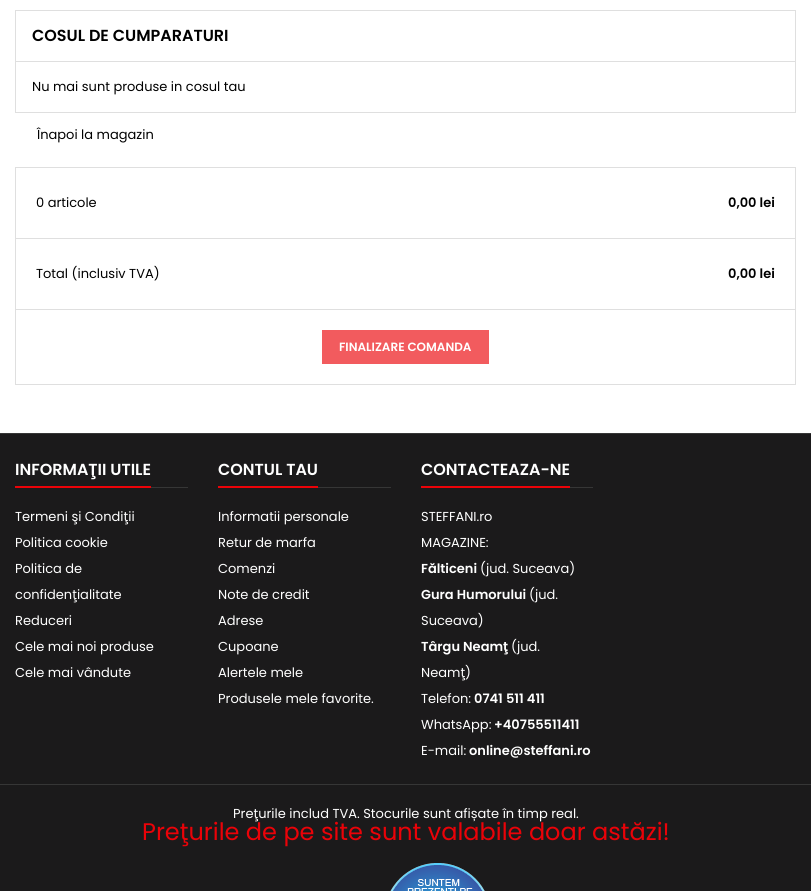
#include <cairo.h>
#include <math.h>
#include <stddef.h>


static void set_color(cairo_t *cr, unsigned color) {
    cairo_set_source_rgb(cr, (color >> 16) / 255.0, (color >> 8 & 255) / 255.0, (color & 255) / 255.0);
}

static void draw_text(cairo_t *cr, double x, double y, const char *s, const char *family, double size, int italic, int bold, unsigned color) {
    cairo_select_font_face(cr, family, italic ? CAIRO_FONT_SLANT_ITALIC : CAIRO_FONT_SLANT_NORMAL,
        bold ? CAIRO_FONT_WEIGHT_BOLD : CAIRO_FONT_WEIGHT_NORMAL);
    cairo_set_font_size(cr, size);
    set_color(cr, color);
    cairo_move_to(cr, x, y);
    cairo_show_text(cr, s);
}

static void fill_rect(cairo_t *cr, double x, double y, double w, double h, unsigned color) {
    set_color(cr, color);
    cairo_rectangle(cr, x, y, w, h);
    cairo_fill(cr);
}

static void draw_image(cairo_t *cr, const char *path, double x, double y, double w, double h) {
    cairo_surface_t *image = cairo_image_surface_create_from_png(path);
    cairo_save(cr);
    cairo_set_source_surface(cr, image, x, y);
    cairo_rectangle(cr, x, y, w, h);
    cairo_fill(cr);
    cairo_restore(cr);
    cairo_surface_destroy(image);
}

int main(void) {
    cairo_surface_t *surface = cairo_image_surface_create(CAIRO_FORMAT_RGB24, 811, 891);
    cairo_t *cr = cairo_create(surface);
    cairo_font_options_t *options = cairo_font_options_create();
    cairo_font_options_set_hint_metrics(options, CAIRO_HINT_METRICS_OFF);
    cairo_font_options_set_hint_style(options, CAIRO_HINT_STYLE_NONE);
    cairo_set_font_options(cr, options);
    cairo_set_miter_limit(cr, 4);
    set_color(cr, 0xFFFFFF);
    cairo_paint(cr);
    cairo_rectangle(cr, 15.5, 10.5, 780, 102);
    set_color(cr, 0xDFDFDF);
    cairo_set_line_width(cr, 1);
    cairo_stroke(cr);
    draw_text(cr, 32, 41, "COSUL DE CUMPARATURI", "Poppins SemiBold", 16, 0, 0, 0x000000);
    fill_rect(cr, 16, 61, 779, 1, 0xDFDFDF);
    draw_text(cr, 32, 91, "Nu mai sunt produse in cosul tau", "Poppins", 13, 0, 0, 0x000000);
    draw_text(cr, 37, 139, "Înapoi la magazin", "Poppins", 13, 0, 0, 0x000000);
    cairo_rectangle(cr, 15.5, 167.5, 780, 217);
    set_color(cr, 0xDFDFDF);
    cairo_stroke(cr);
    draw_text(cr, 36, 207, "0 articole", "Poppins", 13, 0, 0, 0x000000);
    draw_text(cr, 728, 207, "0,00 lei", "Poppins SemiBold", 13, 0, 0, 0x000000);
    fill_rect(cr, 16, 238, 779, 1, 0xDFDFDF);
    draw_text(cr, 36, 278, "Total (inclusiv TVA)", "Poppins", 13, 0, 0, 0x000000);
    draw_text(cr, 728, 278, "0,00 lei", "Poppins SemiBold", 13, 0, 0, 0x000000);
    fill_rect(cr, 16, 309, 779, 1, 0xDFDFDF);
    fill_rect(cr, 322, 330, 167, 34, 0xF25B5E);
    draw_text(cr, 339, 351, "FINALIZARE COMANDA", "Poppins SemiBold", 12, 0, 0, 0xFFFFFF);
    fill_rect(cr, 0, 434, 811, 457, 0x1B1A1B);
    fill_rect(cr, 0, 433, 811, 1, 0x363636);
    fill_rect(cr, 151, 487, 37, 1, 0x363636);
    fill_rect(cr, 15, 486, 136, 2, 0xEB0208);
    draw_text(cr, 15, 475, "INFORMAŢII UTILE", "Poppins SemiBold", 16, 0, 0, 0xFFFFFF);
    draw_text(cr, 15, 521, "Termeni şi Condiţii", "Poppins", 13, 0, 0, 0xFFFFFF);
    draw_text(cr, 15, 547, "Politica cookie", "Poppins", 13, 0, 0, 0xFFFFFF);
    draw_text(cr, 15, 573, "Politica de", "Poppins", 13, 0, 0, 0xFFFFFF);
    draw_text(cr, 15, 599, "confidenţialitate", "Poppins", 13, 0, 0, 0xFFFFFF);
    draw_text(cr, 15, 625, "Reduceri", "Poppins", 13, 0, 0, 0xFFFFFF);
    draw_text(cr, 15, 651, "Cele mai noi produse", "Poppins", 13, 0, 0, 0xFFFFFF);
    draw_text(cr, 15, 677, "Cele mai vândute", "Poppins", 13, 0, 0, 0xFFFFFF);
    fill_rect(cr, 318, 487, 73, 1, 0x363636);
    fill_rect(cr, 218, 486, 100, 2, 0xEB0208);
    draw_text(cr, 218, 475, "CONTUL TAU", "Poppins SemiBold", 16, 0, 0, 0xFFFFFF);
    draw_text(cr, 218, 521, "Informatii personale", "Poppins", 13, 0, 0, 0xFFFFFF);
    draw_text(cr, 218, 547, "Retur de marfa", "Poppins", 13, 0, 0, 0xFFFFFF);
    draw_text(cr, 218, 573, "Comenzi", "Poppins", 13, 0, 0, 0xFFFFFF);
    draw_text(cr, 218, 599, "Note de credit", "Poppins", 13, 0, 0, 0xFFFFFF);
    draw_text(cr, 218, 625, "Adrese", "Poppins", 13, 0, 0, 0xFFFFFF);
    draw_text(cr, 218, 651, "Cupoane", "Poppins", 13, 0, 0, 0xFFFFFF);
    draw_text(cr, 218, 677, "Alertele mele", "Poppins", 13, 0, 0, 0xFFFFFF);
    draw_text(cr, 218, 703, "Produsele mele favorite.", "Poppins", 13, 0, 0, 0xFFFFFF);
    fill_rect(cr, 570, 487, 23, 1, 0x363636);
    fill_rect(cr, 421, 486, 149, 2, 0xEB0208);
    draw_text(cr, 421, 475, "CONTACTEAZA-NE", "Poppins SemiBold", 16, 0, 0, 0xFFFFFF);
    draw_text(cr, 421, 521, "STEFFANI.ro", "Poppins", 13, 0, 0, 0xFFFFFF);
    draw_text(cr, 421, 547, "MAGAZINE:", "Poppins", 13, 0, 0, 0xFFFFFF);
    draw_text(cr, 421, 573, "Fălticeni", "Poppins SemiBold", 13, 0, 0, 0xFFFFFF);
    draw_text(cr, 480, 573, "(jud. Suceava)", "Poppins", 13, 0, 0, 0xFFFFFF);
    draw_text(cr, 421, 599, "Gura Humorului", "Poppins SemiBold", 13, 0, 0, 0xFFFFFF);
    draw_text(cr, 529, 599, "(jud.", "Poppins", 13, 0, 0, 0xFFFFFF);
    draw_text(cr, 421, 625, "Suceava)", "Poppins", 13, 0, 0, 0xFFFFFF);
    draw_text(cr, 421, 651, "Târgu Neamţ", "Poppins SemiBold", 13, 0, 0, 0xFFFFFF);
    draw_text(cr, 511, 651, "(jud.", "Poppins", 13, 0, 0, 0xFFFFFF);
    draw_text(cr, 421, 677, "Neamţ)", "Poppins", 13, 0, 0, 0xFFFFFF);
    draw_text(cr, 421, 703, "Telefon:", "Poppins", 13, 0, 0, 0xFFFFFF);
    draw_text(cr, 474, 703, "0741 511 411", "Poppins SemiBold", 13, 0, 0, 0xFFFFFF);
    draw_text(cr, 421, 729, "WhatsApp:", "Poppins", 13, 0, 0, 0xFFFFFF);
    draw_text(cr, 494, 729, "+40755511411", "Poppins SemiBold", 13, 0, 0, 0xFFFFFF);
    draw_text(cr, 421, 755, "E-mail:", "Poppins", 13, 0, 0, 0xFFFFFF);
    draw_text(cr, 469, 755, "online@steffani.ro", "Poppins SemiBold", 13, 0, 0, 0xFFFFFF);
    fill_rect(cr, 0, 784, 811, 1, 0x363636);
    draw_text(cr, 233, 818, "Preţurile includ TVA. Stocurile sunt afișate în timp real.", "Poppins", 13, 0, 0, 0xFFFFFF);
    draw_text(cr, 142, 840, "Preţurile de pe site sunt valabile doar astăzi!", "Poppins", 24, 0, 0, 0xEB0208);
    draw_image(cr, "assets/img1.png", 390, 863, 95, 28);
    cairo_surface_write_to_png(surface, "output.png");
    cairo_font_options_destroy(options);
    cairo_destroy(cr);
    cairo_surface_destroy(surface);
    return 0;
}
